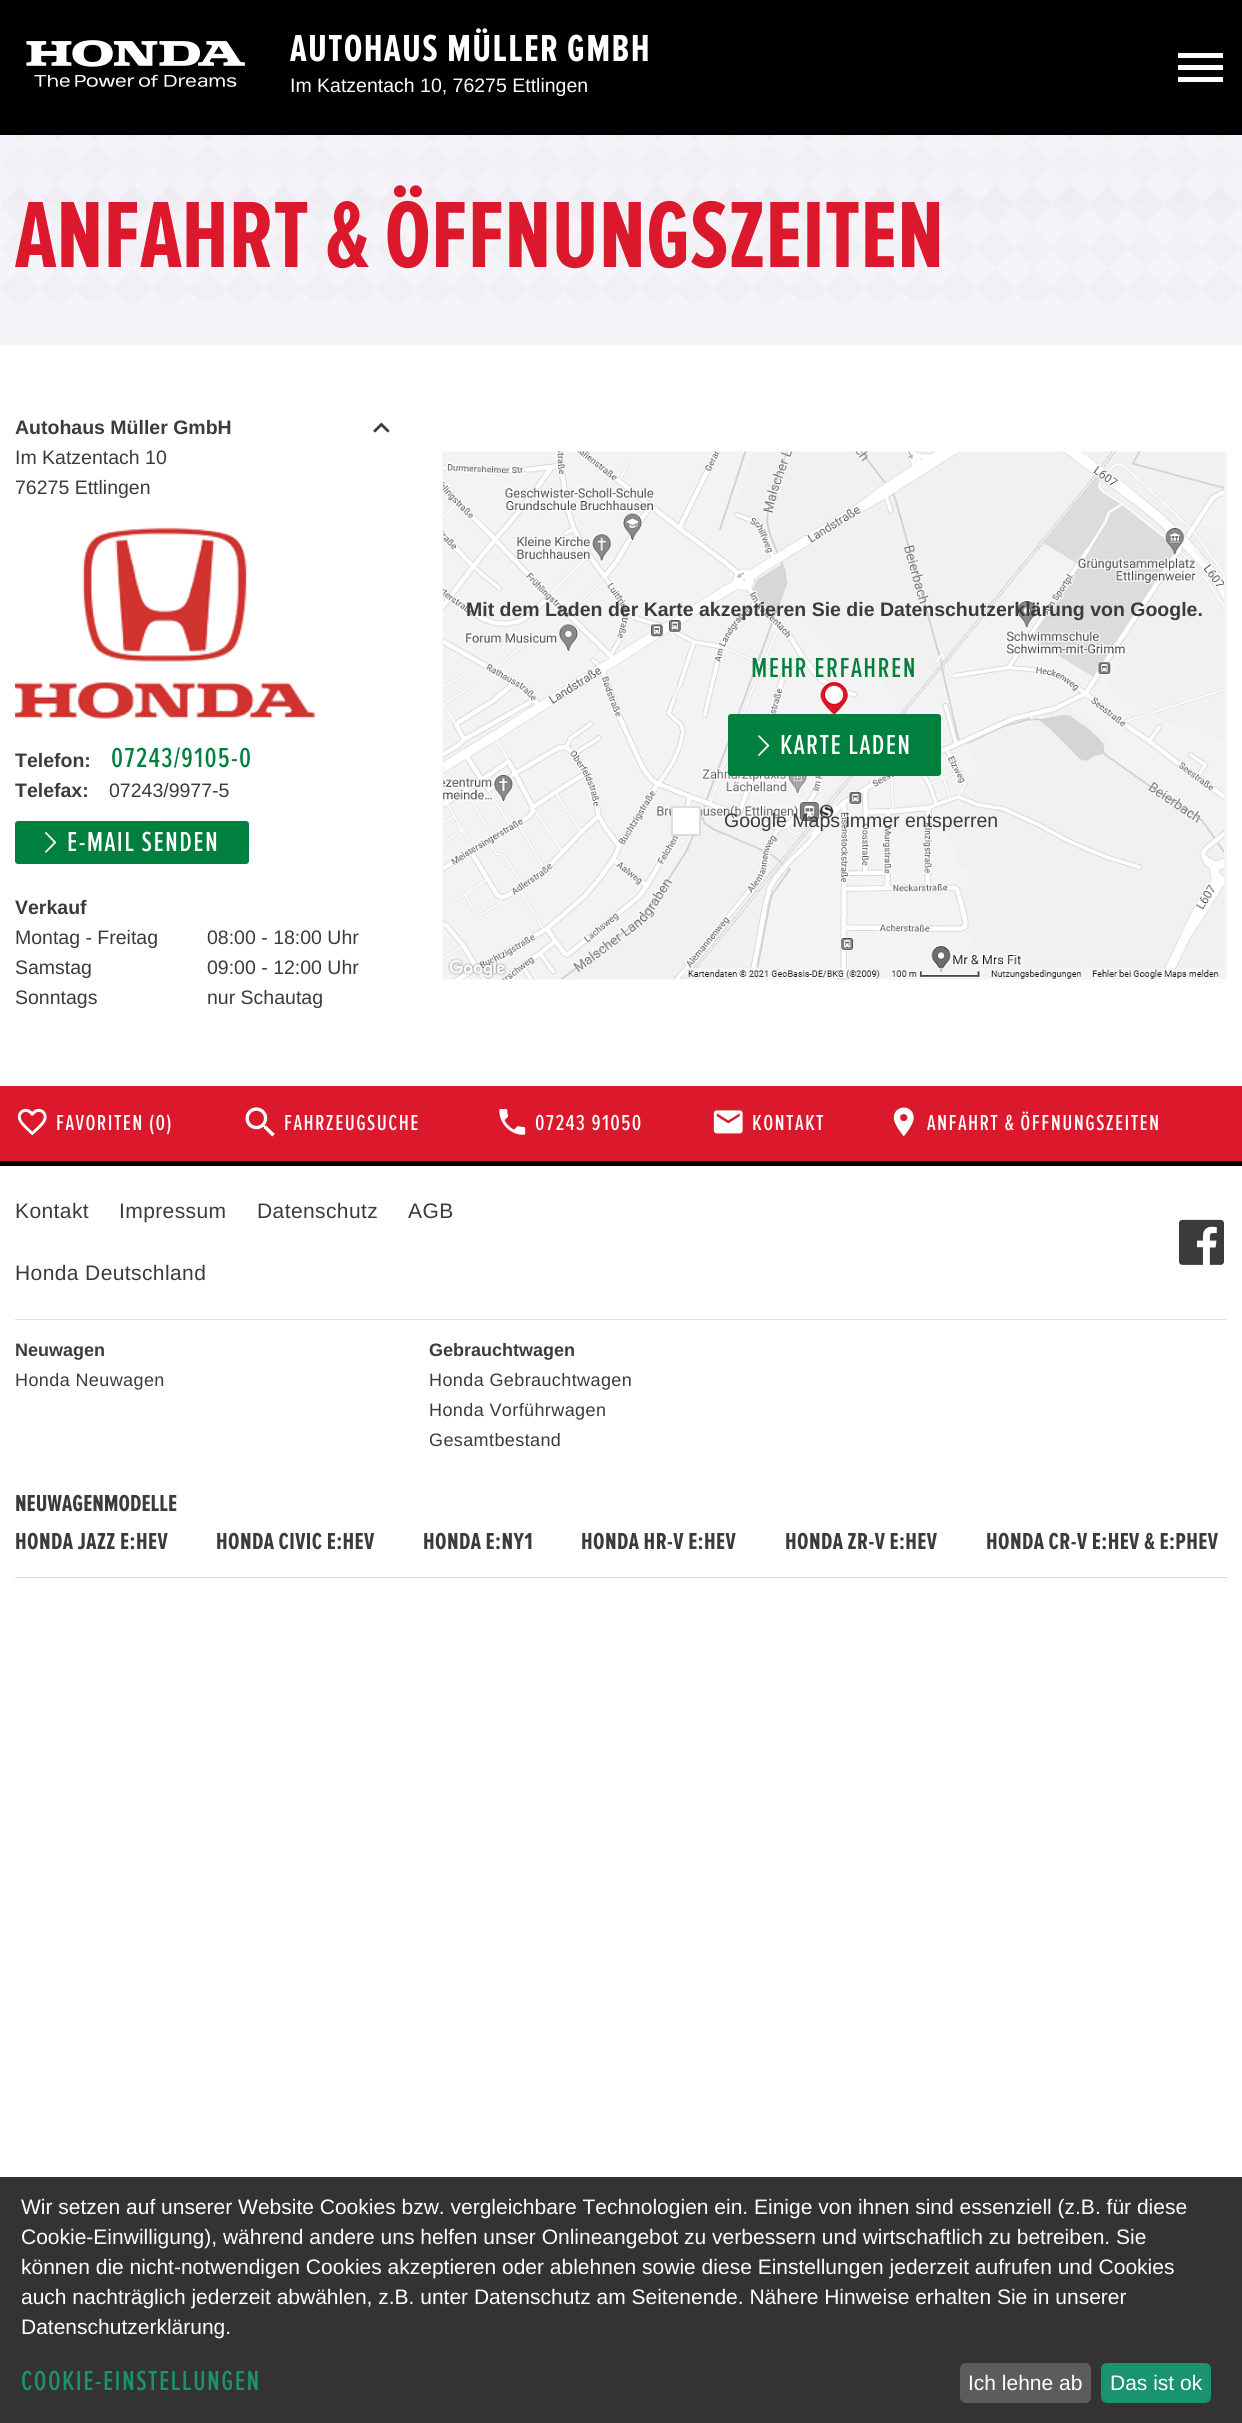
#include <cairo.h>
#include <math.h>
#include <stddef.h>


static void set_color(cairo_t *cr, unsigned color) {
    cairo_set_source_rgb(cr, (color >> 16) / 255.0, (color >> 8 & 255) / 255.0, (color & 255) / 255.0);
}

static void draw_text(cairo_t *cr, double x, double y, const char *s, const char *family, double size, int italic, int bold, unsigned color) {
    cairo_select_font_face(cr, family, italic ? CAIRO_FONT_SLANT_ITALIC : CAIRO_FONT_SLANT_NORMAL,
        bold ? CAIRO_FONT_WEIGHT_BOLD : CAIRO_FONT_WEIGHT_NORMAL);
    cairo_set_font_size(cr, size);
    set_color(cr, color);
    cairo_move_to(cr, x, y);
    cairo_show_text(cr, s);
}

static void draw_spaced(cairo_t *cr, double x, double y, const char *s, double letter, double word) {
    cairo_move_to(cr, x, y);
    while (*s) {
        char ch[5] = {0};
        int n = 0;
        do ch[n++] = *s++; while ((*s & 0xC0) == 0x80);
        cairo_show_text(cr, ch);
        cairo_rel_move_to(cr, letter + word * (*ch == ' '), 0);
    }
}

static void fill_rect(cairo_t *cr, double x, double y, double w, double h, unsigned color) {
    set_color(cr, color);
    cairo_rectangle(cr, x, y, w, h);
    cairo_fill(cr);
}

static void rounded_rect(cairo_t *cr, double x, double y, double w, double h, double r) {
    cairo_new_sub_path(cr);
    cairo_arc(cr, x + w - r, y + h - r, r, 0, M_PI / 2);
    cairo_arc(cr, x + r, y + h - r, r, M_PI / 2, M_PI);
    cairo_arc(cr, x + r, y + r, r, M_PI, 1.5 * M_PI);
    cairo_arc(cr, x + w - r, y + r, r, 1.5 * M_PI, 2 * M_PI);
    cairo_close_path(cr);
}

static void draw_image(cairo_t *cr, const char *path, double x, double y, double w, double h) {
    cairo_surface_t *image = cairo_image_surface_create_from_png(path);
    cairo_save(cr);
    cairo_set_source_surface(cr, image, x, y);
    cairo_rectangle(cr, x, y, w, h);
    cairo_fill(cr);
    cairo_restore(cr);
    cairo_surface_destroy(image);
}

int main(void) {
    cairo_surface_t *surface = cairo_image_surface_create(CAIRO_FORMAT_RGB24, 1242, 2423);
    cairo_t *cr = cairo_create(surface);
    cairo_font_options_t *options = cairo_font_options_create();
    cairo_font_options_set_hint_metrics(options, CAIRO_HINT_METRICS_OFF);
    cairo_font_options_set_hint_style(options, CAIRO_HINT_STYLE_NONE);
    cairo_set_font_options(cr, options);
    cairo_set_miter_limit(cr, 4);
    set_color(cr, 0xFFFFFF);
    cairo_paint(cr);
    fill_rect(cr, 0, 0, 1242, 135, 0x000000);
    draw_image(cr, "assets/img1.png", 26, 40, 219, 47);
    cairo_select_font_face(cr, "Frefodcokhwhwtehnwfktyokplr", CAIRO_FONT_SLANT_NORMAL, CAIRO_FONT_WEIGHT_BOLD);
    cairo_set_font_size(cr, 39);
    set_color(cr, 0xFFFFFF);
    draw_spaced(cr, 290, 61, "AUTOHAUS MÜLLER GMBH", 1.4, 0);
    draw_text(cr, 290, 92, "Im Katzentach 10, 76275 Ettlingen", "Liberation Sans", 19.5, 0, 0, 0xFFFFFF);
    fill_rect(cr, 1178, 65, 45, 5, 0xFFFFFF);
    fill_rect(cr, 1178, 53, 45, 5, 0xFFFFFF);
    fill_rect(cr, 1178, 77, 45, 5, 0xFFFFFF);
    fill_rect(cr, 0, 135, 1242, 210, 0xF4F3F8);
    draw_image(cr, "assets/img2.png", 2, 135, 1240, 168);
    draw_text(cr, 15, 267, "ANFAHRT & ÖFFNUNGSZEITEN", "Frefodcokhwhwtehnwfktyokplr", 97.5, 0, 1, 0xDC182D);
    draw_text(cr, 15, 434, "Autohaus Müller GmbH", "Liberation Sans", 19.5, 0, 1, 0x3B3B3B);
    draw_text(cr, 15, 464, "Im Katzentach 10", "Liberation Sans", 19.5, 0, 0, 0x3B3B3B);
    draw_text(cr, 15, 494, "76275 Ettlingen", "Liberation Sans", 19.5, 0, 0, 0x3B3B3B);
    draw_image(cr, "assets/img3.png", 373, 422, 17, 11);
    draw_image(cr, "assets/img4.png", 15, 527, 300, 192);
    draw_text(cr, 15, 767, "Telefon:", "Liberation Sans", 19.5, 0, 1, 0x3B3B3B);
    cairo_select_font_face(cr, "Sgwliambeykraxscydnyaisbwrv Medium", CAIRO_FONT_SLANT_NORMAL, CAIRO_FONT_WEIGHT_NORMAL);
    cairo_set_font_size(cr, 28.5);
    set_color(cr, 0x00803E);
    draw_spaced(cr, 111, 767, "07243/9105-0", 1.4, 0);
    draw_text(cr, 15, 797, "Telefax:", "Liberation Sans", 19.5, 0, 1, 0x3B3B3B);
    draw_text(cr, 109, 797, "07243/9977-5", "Liberation Sans", 19.5, 0, 0, 0x3B3B3B);
    set_color(cr, 0x00803E);
    rounded_rect(cr, 15, 821, 234, 43, 3);
    cairo_fill(cr);
    draw_image(cr, "assets/img5.png", 45, 832, 12, 21);
    cairo_select_font_face(cr, "Sgwliambeykraxscydnyaisbwrv Medium", CAIRO_FONT_SLANT_NORMAL, CAIRO_FONT_WEIGHT_NORMAL);
    cairo_set_font_size(cr, 28.5);
    set_color(cr, 0xFFFFFF);
    draw_spaced(cr, 67, 851, "E-MAIL SENDEN", 1.4, 0);
    draw_text(cr, 15, 914, "Verkauf", "Liberation Sans", 19.5, 0, 1, 0x3B3B3B);
    draw_text(cr, 15, 944, "Montag - Freitag", "Liberation Sans", 19.5, 0, 0, 0x3B3B3B);
    draw_text(cr, 207, 944, "08:00 - 18:00 Uhr", "Liberation Sans", 19.5, 0, 0, 0x3B3B3B);
    draw_text(cr, 15, 974, "Samstag", "Liberation Sans", 19.5, 0, 0, 0x3B3B3B);
    draw_text(cr, 207, 974, "09:00 - 12:00 Uhr", "Liberation Sans", 19.5, 0, 0, 0x3B3B3B);
    draw_text(cr, 15, 1004, "Sonntags", "Liberation Sans", 19.5, 0, 0, 0x3B3B3B);
    draw_text(cr, 207, 1004, "nur Schautag", "Liberation Sans", 19.5, 0, 0, 0x3B3B3B);
    draw_image(cr, "assets/img6.png", 442, 451, 785, 529);
    draw_text(cr, 466, 616, "Mit dem Laden der Karte akzeptieren Sie die Datenschutzerklärung von Google.", "Liberation Sans", 19.5, 0, 1, 0x3B3B3B);
    cairo_select_font_face(cr, "Sgwliambeykraxscydnyaisbwrv Medium", CAIRO_FONT_SLANT_NORMAL, CAIRO_FONT_WEIGHT_NORMAL);
    cairo_set_font_size(cr, 28.5);
    set_color(cr, 0x00803E);
    draw_spaced(cr, 751, 677, "MEHR ERFAHREN", 1.4, 0);
    rounded_rect(cr, 728, 714, 213, 62, 3);
    cairo_fill(cr);
    draw_image(cr, "assets/img7.png", 758, 735, 12, 21);
    set_color(cr, 0xFFFFFF);
    draw_spaced(cr, 780, 754, "KARTE LADEN", 1.4, 0);
    cairo_rectangle(cr, 672, 807, 28, 28);
    cairo_fill_preserve(cr);
    set_color(cr, 0xDDDDDD);
    cairo_stroke(cr);
    draw_text(cr, 724, 827, "Google Maps immer entsperren", "Liberation Sans", 19.5, 0, 0, 0x3B3B3B);
    fill_rect(cr, 0, 1086, 1242, 75, 0xDC182D);
    draw_image(cr, "assets/img8.png", 17, 1108, 30, 28);
    cairo_select_font_face(cr, "Sgwliambeykraxscydnyaisbwrv Medium", CAIRO_FONT_SLANT_NORMAL, CAIRO_FONT_WEIGHT_NORMAL);
    cairo_set_font_size(cr, 22.5);
    set_color(cr, 0xFFFFFF);
    draw_spaced(cr, 56, 1130, "FAVORITEN (0)", 1.4, 0);
    draw_image(cr, "assets/img9.png", 245, 1107, 30, 30);
    draw_spaced(cr, 284, 1130, "FAHRZEUGSUCHE", 1.4, 0);
    draw_image(cr, "assets/img10.png", 499, 1109, 27, 26);
    draw_spaced(cr, 535, 1130, "07243 91050", 1.4, 0);
    draw_image(cr, "assets/img11.png", 713, 1110, 30, 24);
    draw_spaced(cr, 752, 1130, "KONTAKT", 1.4, 0);
    draw_image(cr, "assets/img12.png", 893, 1107, 21, 30);
    draw_spaced(cr, 927, 1130, "ANFAHRT & ÖFFNUNGSZEITEN", 1.4, 0);
    fill_rect(cr, 0, 1161, 1242, 5, 0x000000);
    cairo_select_font_face(cr, "Liberation Sans", CAIRO_FONT_SLANT_NORMAL, CAIRO_FONT_WEIGHT_NORMAL);
    cairo_set_font_size(cr, 21);
    set_color(cr, 0x3B3B3B);
    draw_spaced(cr, 15, 1218, "Kontakt", 0.4, 0);
    draw_spaced(cr, 119, 1218, "Impressum", 0.4, 0);
    draw_spaced(cr, 257, 1218, "Datenschutz", 0.4, 0);
    draw_spaced(cr, 408, 1218, "AGB", 0.4, 0);
    draw_spaced(cr, 15, 1280, "Honda Deutschland", 0.4, 0);
    draw_image(cr, "assets/img13.png", 1179, 1219, 45, 46);
    fill_rect(cr, 15, 1319, 1212, 1, 0xDDDDDD);
    draw_text(cr, 15, 1356, "Neuwagen", "Liberation Sans", 18, 0, 1, 0x3B3B3B);
    cairo_select_font_face(cr, "Liberation Sans", CAIRO_FONT_SLANT_NORMAL, CAIRO_FONT_WEIGHT_NORMAL);
    draw_spaced(cr, 15, 1386, "Honda Neuwagen", 0.4, 0);
    draw_text(cr, 429, 1356, "Gebrauchtwagen", "Liberation Sans", 18, 0, 1, 0x3B3B3B);
    cairo_select_font_face(cr, "Liberation Sans", CAIRO_FONT_SLANT_NORMAL, CAIRO_FONT_WEIGHT_NORMAL);
    draw_spaced(cr, 429, 1386, "Honda Gebrauchtwagen", 0.4, 0);
    draw_spaced(cr, 429, 1416, "Honda Vorführwagen", 0.4, 0);
    draw_spaced(cr, 429, 1446, "Gesamtbestand", 0.4, 0);
    draw_text(cr, 15, 1511, "NEUWAGENMODELLE", "Frefodcokhwhwtehnwfktyokplr", 24, 0, 1, 0x3B3B3B);
    draw_spaced(cr, 15, 1549, "HONDA JAZZ E:HEV", 0.4, 0);
    draw_spaced(cr, 216, 1549, "HONDA CIVIC E:HEV", 0.4, 0);
    draw_spaced(cr, 423, 1549, "HONDA E:NY1", 0.4, 0);
    draw_spaced(cr, 581, 1549, "HONDA HR-V E:HEV", 0.4, 0);
    draw_spaced(cr, 785, 1549, "HONDA ZR-V E:HEV", 0.4, 0);
    draw_spaced(cr, 986, 1549, "HONDA CR-V E:HEV & E:PHEV", 0.4, 0);
    fill_rect(cr, 15, 1577, 1212, 1, 0xDDDDDD);
    fill_rect(cr, 0, 2177, 1242, 246, 0x333333);
    draw_text(cr, 21, 2214, "Wir setzen auf unserer Website Cookies bzw. vergleichbare Technologien ein. Einige von ihnen sind essenziell (z.B. für diese", "Liberation Sans", 21, 0, 0, 0xFFFFFF);
    draw_text(cr, 21, 2244, "Cookie-Einwilligung), während andere uns helfen unser Onlineangebot zu verbessern und wirtschaftlich zu betreiben. Sie", "Liberation Sans", 21, 0, 0, 0xFFFFFF);
    draw_text(cr, 21, 2274, "können die nicht-notwendigen Cookies akzeptieren oder ablehnen sowie diese Einstellungen jederzeit aufrufen und Cookies", "Liberation Sans", 21, 0, 0, 0xFFFFFF);
    draw_text(cr, 21, 2304, "auch nachträglich jederzeit abwählen, z.B. unter Datenschutz am Seitenende. Nähere Hinweise erhalten Sie in unserer", "Liberation Sans", 21, 0, 0, 0xFFFFFF);
    draw_text(cr, 21, 2334, "Datenschutzerklärung.", "Liberation Sans", 21, 0, 0, 0xFFFFFF);
    cairo_select_font_face(cr, "Sgwliambeykraxscydnyaisbwrv Medium", CAIRO_FONT_SLANT_NORMAL, CAIRO_FONT_WEIGHT_NORMAL);
    cairo_set_font_size(cr, 28.5);
    set_color(cr, 0x1A936F);
    draw_spaced(cr, 21, 2390, "COOKIE-EINSTELLUNGEN", 1.4, 0);
    set_color(cr, 0x5C5C5C);
    rounded_rect(cr, 960, 2363, 131, 40, 6);
    cairo_fill(cr);
    draw_text(cr, 968, 2390, "Ich lehne ab", "Liberation Sans", 21, 0, 0, 0xFFFFFF);
    set_color(cr, 0x1A936F);
    rounded_rect(cr, 1101, 2363, 110, 40, 6);
    cairo_fill(cr);
    draw_text(cr, 1110, 2390, "Das ist ok", "Liberation Sans", 21, 0, 0, 0xFFFFFF);
    cairo_surface_write_to_png(surface, "output.png");
    cairo_font_options_destroy(options);
    cairo_destroy(cr);
    cairo_surface_destroy(surface);
    return 0;
}
